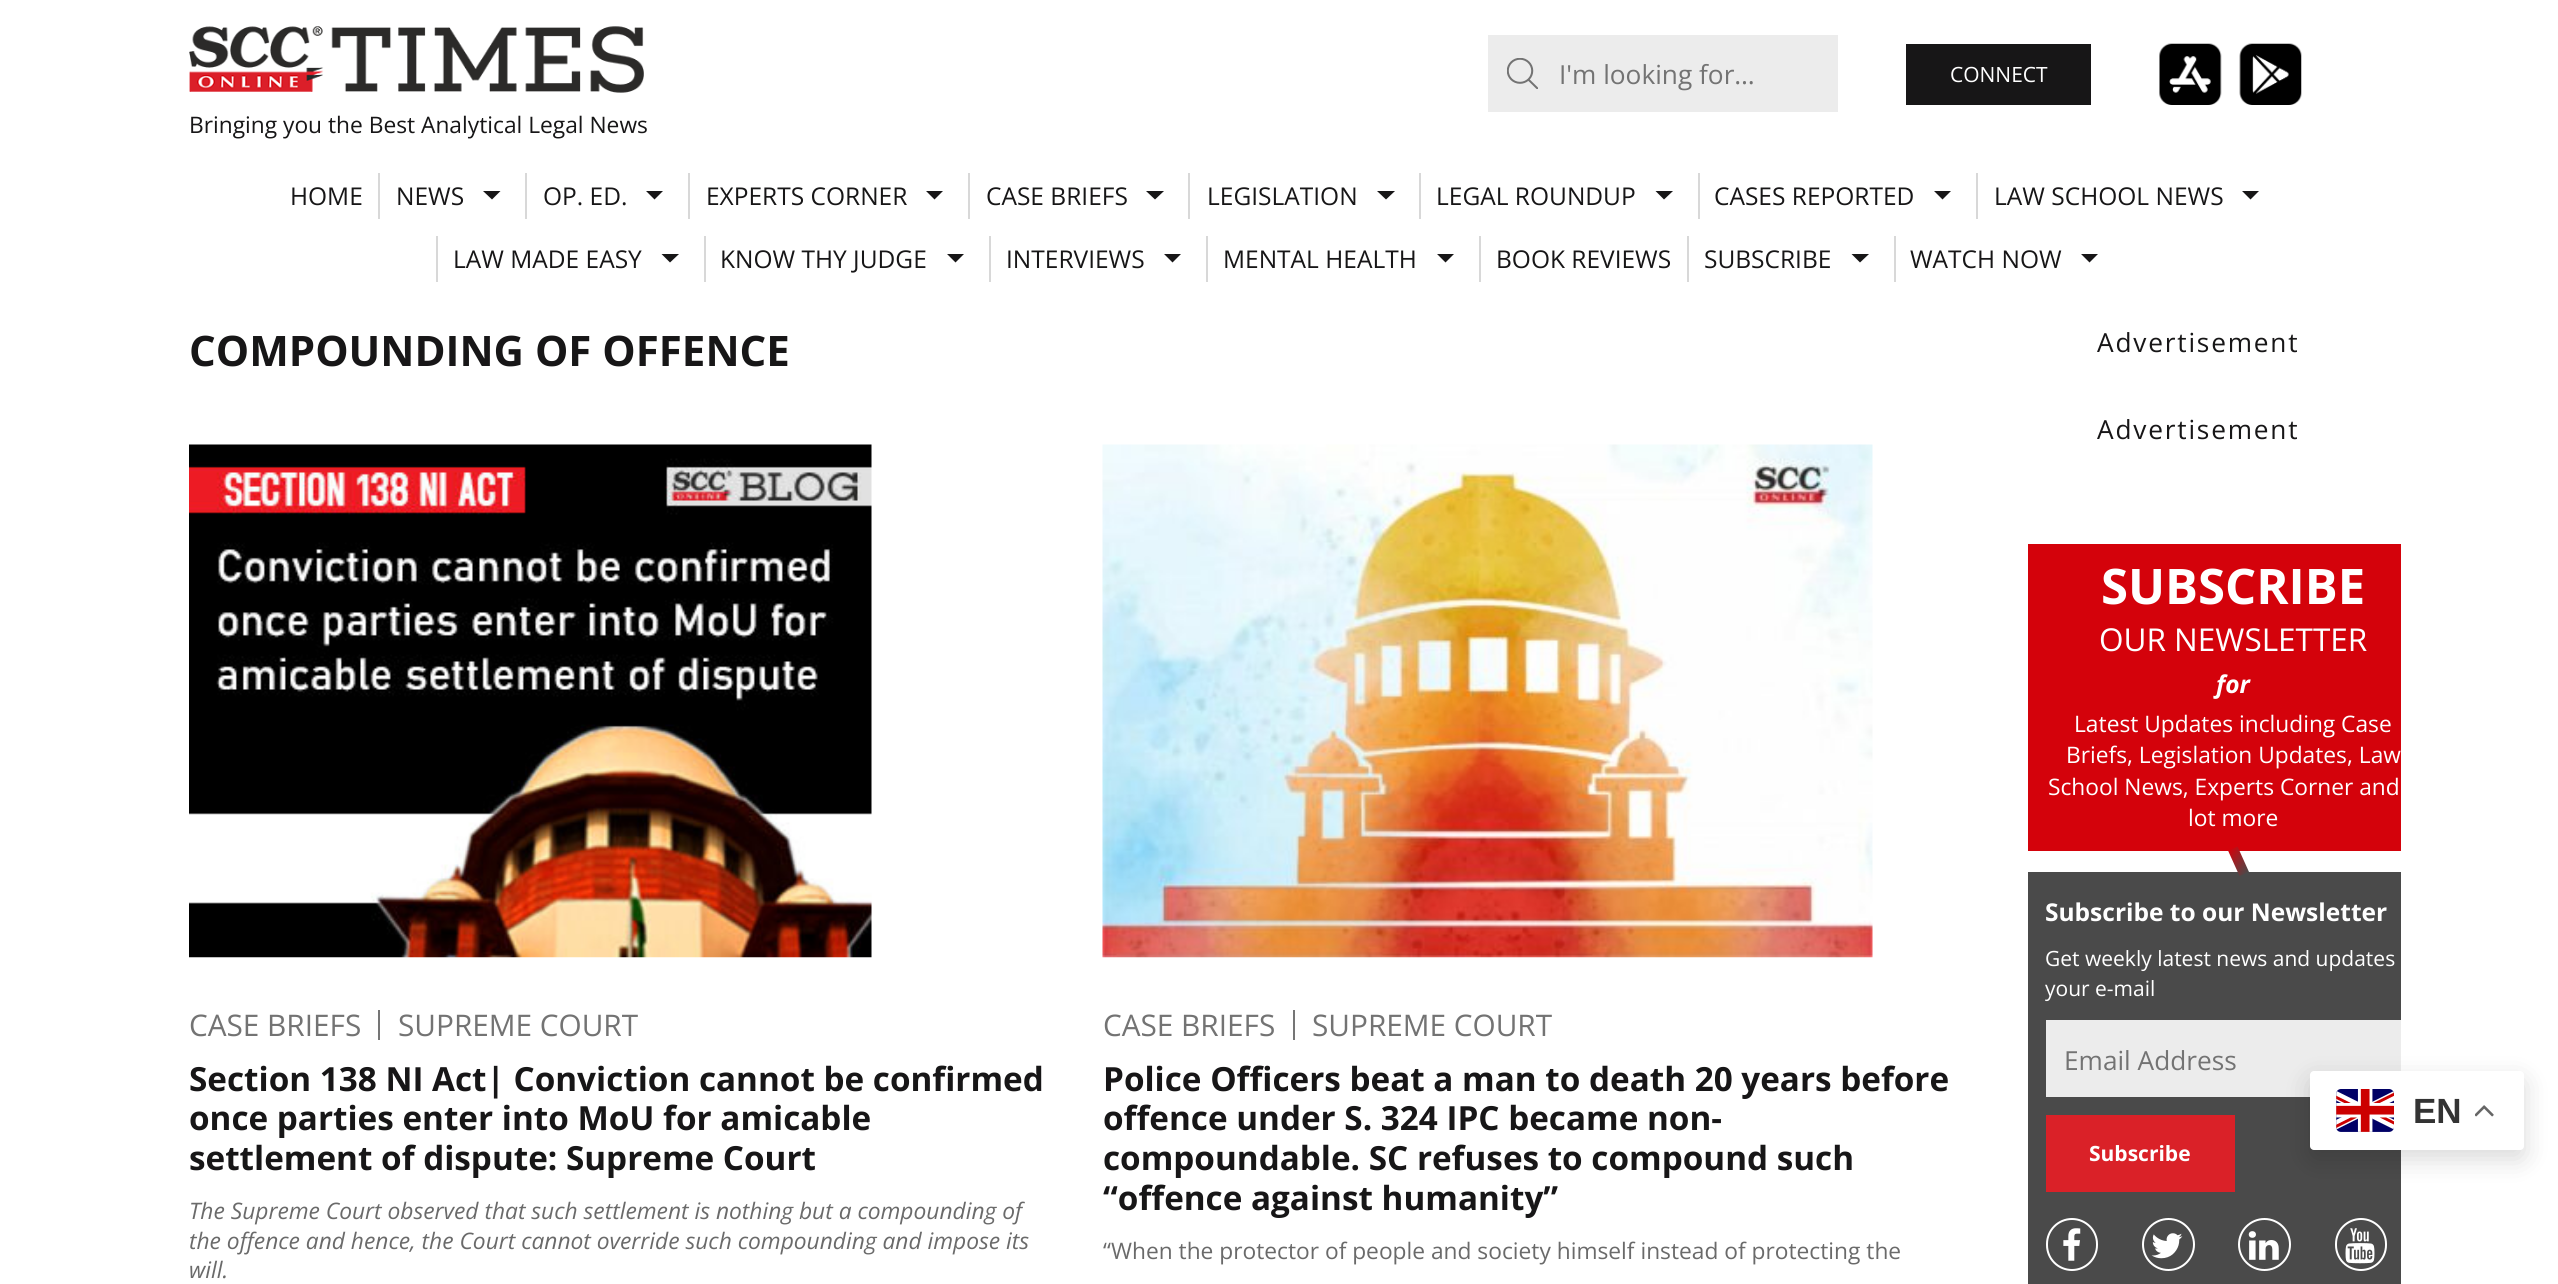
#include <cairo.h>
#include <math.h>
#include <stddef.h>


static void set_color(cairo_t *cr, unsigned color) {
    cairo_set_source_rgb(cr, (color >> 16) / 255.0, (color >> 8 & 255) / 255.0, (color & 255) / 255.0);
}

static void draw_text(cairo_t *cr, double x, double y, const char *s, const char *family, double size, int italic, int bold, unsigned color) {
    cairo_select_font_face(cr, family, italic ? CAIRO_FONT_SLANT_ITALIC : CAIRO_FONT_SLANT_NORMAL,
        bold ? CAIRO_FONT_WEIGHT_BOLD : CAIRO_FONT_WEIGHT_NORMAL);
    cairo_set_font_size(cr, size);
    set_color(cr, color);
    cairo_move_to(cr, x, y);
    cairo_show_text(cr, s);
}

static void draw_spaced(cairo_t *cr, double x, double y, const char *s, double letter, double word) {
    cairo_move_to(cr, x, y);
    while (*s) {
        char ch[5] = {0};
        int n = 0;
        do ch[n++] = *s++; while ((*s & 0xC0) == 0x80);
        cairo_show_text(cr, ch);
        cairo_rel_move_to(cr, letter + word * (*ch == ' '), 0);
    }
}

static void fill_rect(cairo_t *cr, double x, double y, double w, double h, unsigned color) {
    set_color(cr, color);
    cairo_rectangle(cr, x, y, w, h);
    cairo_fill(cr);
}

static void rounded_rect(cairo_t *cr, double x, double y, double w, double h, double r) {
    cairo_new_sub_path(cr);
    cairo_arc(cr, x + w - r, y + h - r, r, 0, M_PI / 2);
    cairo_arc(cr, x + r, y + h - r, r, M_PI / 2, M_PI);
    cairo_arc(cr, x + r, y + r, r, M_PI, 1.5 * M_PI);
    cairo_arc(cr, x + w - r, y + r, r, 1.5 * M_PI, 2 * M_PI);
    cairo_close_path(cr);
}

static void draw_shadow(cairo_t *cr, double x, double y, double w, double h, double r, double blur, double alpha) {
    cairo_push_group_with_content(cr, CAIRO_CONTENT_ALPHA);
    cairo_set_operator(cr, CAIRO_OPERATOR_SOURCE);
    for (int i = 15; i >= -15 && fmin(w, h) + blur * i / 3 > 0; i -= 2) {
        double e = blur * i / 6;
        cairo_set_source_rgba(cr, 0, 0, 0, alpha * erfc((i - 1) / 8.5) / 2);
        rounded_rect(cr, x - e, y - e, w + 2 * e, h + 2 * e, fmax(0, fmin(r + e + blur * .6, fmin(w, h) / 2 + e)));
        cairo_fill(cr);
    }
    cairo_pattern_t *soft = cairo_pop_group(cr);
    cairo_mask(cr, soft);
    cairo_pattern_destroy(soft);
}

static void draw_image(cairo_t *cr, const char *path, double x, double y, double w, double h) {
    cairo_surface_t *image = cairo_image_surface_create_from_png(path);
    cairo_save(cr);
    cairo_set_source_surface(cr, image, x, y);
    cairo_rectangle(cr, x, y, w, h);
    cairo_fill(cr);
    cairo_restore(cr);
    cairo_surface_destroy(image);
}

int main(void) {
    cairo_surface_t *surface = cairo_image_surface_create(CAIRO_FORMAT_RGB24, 2558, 1284);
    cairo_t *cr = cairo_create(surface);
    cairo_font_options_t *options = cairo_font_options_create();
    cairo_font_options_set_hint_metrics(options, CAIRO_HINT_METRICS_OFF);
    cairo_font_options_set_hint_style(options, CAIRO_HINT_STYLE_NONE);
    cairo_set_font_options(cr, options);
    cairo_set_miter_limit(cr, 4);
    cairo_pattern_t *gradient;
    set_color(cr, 0xFFFFFF);
    cairo_paint(cr);
    fill_rect(cr, 1488, 35, 350, 77, 0xECECEC);
    draw_image(cr, "assets/img1.png", 1507, 58, 31, 31);
    draw_text(cr, 1559, 84, "I'm looking for…", "Open Sans", 26.25, 0, 0, 0x737373);
    fill_rect(cr, 1906, 44, 185, 61, 0x171617);
    draw_text(cr, 1950, 82, "CONNECT", "Open Sans", 21, 0, 0, 0xFFFFFF);
    draw_image(cr, "assets/img2.png", 2159, 43, 143, 62);
    draw_image(cr, "assets/img3.png", 189, 26, 455, 67);
    draw_text(cr, 189, 133, "Bringing you the Best Analytical Legal News", "Open Sans", 22.75, 0, 0, 0x171617);
    draw_text(cr, 290, 205, "HOME", "Open Sans", 24.5, 0, 0, 0x171617);
    fill_rect(cr, 378, 173, 2, 46, 0xD8D8D8);
    draw_text(cr, 396, 205, "NEWS", "Open Sans", 24.5, 0, 0, 0x171617);
    cairo_new_path(cr);
    cairo_move_to(cr, 483, 191);
    cairo_line_to(cr, 500.5, 191);
    cairo_line_to(cr, 492, 199.5);
    cairo_close_path(cr);
    cairo_fill(cr);
    fill_rect(cr, 525, 173, 2, 46, 0xD8D8D8);
    draw_text(cr, 543, 205, "OP. ED.", "Open Sans", 24.5, 0, 0, 0x171617);
    cairo_new_path(cr);
    cairo_move_to(cr, 646, 191);
    cairo_line_to(cr, 663, 191);
    cairo_line_to(cr, 654.5, 199.5);
    cairo_close_path(cr);
    cairo_fill(cr);
    fill_rect(cr, 688, 173, 2, 46, 0xD8D8D8);
    draw_text(cr, 706, 205, "EXPERTS CORNER", "Open Sans", 24.5, 0, 0, 0x171617);
    cairo_new_path(cr);
    cairo_move_to(cr, 926, 191);
    cairo_line_to(cr, 943, 191);
    cairo_line_to(cr, 934.5, 199.5);
    cairo_close_path(cr);
    cairo_fill(cr);
    fill_rect(cr, 968, 173, 2, 46, 0xD8D8D8);
    draw_text(cr, 986, 205, "CASE BRIEFS", "Open Sans", 24.5, 0, 0, 0x171617);
    cairo_new_path(cr);
    cairo_move_to(cr, 1146, 191);
    cairo_line_to(cr, 1164, 191);
    cairo_line_to(cr, 1155, 199.5);
    cairo_close_path(cr);
    cairo_fill(cr);
    fill_rect(cr, 1188, 173, 2, 46, 0xD8D8D8);
    draw_text(cr, 1207, 205, "LEGISLATION", "Open Sans", 24.5, 0, 0, 0x171617);
    cairo_new_path(cr);
    cairo_move_to(cr, 1377, 191);
    cairo_line_to(cr, 1395, 191);
    cairo_line_to(cr, 1386, 199.5);
    cairo_close_path(cr);
    cairo_fill(cr);
    fill_rect(cr, 1419, 173, 2, 46, 0xD8D8D8);
    draw_text(cr, 1436, 205, "LEGAL ROUNDUP", "Open Sans", 24.5, 0, 0, 0x171617);
    cairo_new_path(cr);
    cairo_move_to(cr, 1655.5, 191);
    cairo_line_to(cr, 1673, 191);
    cairo_line_to(cr, 1664, 199.5);
    cairo_close_path(cr);
    cairo_fill(cr);
    fill_rect(cr, 1698, 173, 2, 46, 0xD8D8D8);
    draw_text(cr, 1714, 205, "CASES REPORTED", "Open Sans", 24.5, 0, 0, 0x171617);
    cairo_new_path(cr);
    cairo_move_to(cr, 1934, 191);
    cairo_line_to(cr, 1951, 191);
    cairo_line_to(cr, 1942.5, 199.5);
    cairo_close_path(cr);
    cairo_fill(cr);
    fill_rect(cr, 1976, 173, 2, 46, 0xD8D8D8);
    draw_text(cr, 1994, 205, "LAW SCHOOL NEWS", "Open Sans", 24.5, 0, 0, 0x171617);
    cairo_new_path(cr);
    cairo_move_to(cr, 2242, 191);
    cairo_line_to(cr, 2259, 191);
    cairo_line_to(cr, 2250.5, 199.5);
    cairo_close_path(cr);
    cairo_fill(cr);
    fill_rect(cr, 436, 236, 2, 46, 0xD8D8D8);
    draw_text(cr, 453, 268, "LAW MADE EASY", "Open Sans", 24.5, 0, 0, 0x171617);
    cairo_new_path(cr);
    cairo_move_to(cr, 661.5, 254);
    cairo_line_to(cr, 679, 254);
    cairo_line_to(cr, 670, 262.5);
    cairo_close_path(cr);
    cairo_fill(cr);
    fill_rect(cr, 704, 236, 2, 46, 0xD8D8D8);
    draw_text(cr, 720, 268, "KNOW THY JUDGE", "Open Sans", 24.5, 0, 0, 0x171617);
    cairo_new_path(cr);
    cairo_move_to(cr, 947, 254);
    cairo_line_to(cr, 964, 254);
    cairo_line_to(cr, 955.5, 262.5);
    cairo_close_path(cr);
    cairo_fill(cr);
    fill_rect(cr, 989, 236, 2, 46, 0xD8D8D8);
    draw_text(cr, 1006, 268, "INTERVIEWS", "Open Sans", 24.5, 0, 0, 0x171617);
    cairo_new_path(cr);
    cairo_move_to(cr, 1164, 254);
    cairo_line_to(cr, 1181, 254);
    cairo_line_to(cr, 1172.5, 262.5);
    cairo_close_path(cr);
    cairo_fill(cr);
    fill_rect(cr, 1206, 236, 2, 46, 0xD8D8D8);
    draw_text(cr, 1223, 268, "MENTAL HEALTH", "Open Sans", 24.5, 0, 0, 0x171617);
    cairo_new_path(cr);
    cairo_move_to(cr, 1437, 254);
    cairo_line_to(cr, 1454, 254);
    cairo_line_to(cr, 1445.5, 262.5);
    cairo_close_path(cr);
    cairo_fill(cr);
    fill_rect(cr, 1479, 236, 2, 46, 0xD8D8D8);
    draw_text(cr, 1496, 268, "BOOK REVIEWS", "Open Sans", 24.5, 0, 0, 0x171617);
    fill_rect(cr, 1687, 236, 2, 46, 0xD8D8D8);
    draw_text(cr, 1704, 268, "SUBSCRIBE", "Open Sans", 24.5, 0, 0, 0x171617);
    cairo_new_path(cr);
    cairo_move_to(cr, 1851.5, 254);
    cairo_line_to(cr, 1869, 254);
    cairo_line_to(cr, 1860, 262.5);
    cairo_close_path(cr);
    cairo_fill(cr);
    fill_rect(cr, 1894, 236, 2, 46, 0xD8D8D8);
    draw_text(cr, 1910, 268, "WATCH NOW", "Open Sans", 24.5, 0, 0, 0x171617);
    cairo_new_path(cr);
    cairo_move_to(cr, 2081, 254);
    cairo_line_to(cr, 2098, 254);
    cairo_line_to(cr, 2089.5, 262.5);
    cairo_close_path(cr);
    cairo_fill(cr);
    draw_text(cr, 189, 366, "COMPOUNDING OF OFFENCE", "Open Sans", 42, 0, 1, 0x171617);
    draw_image(cr, "assets/img4.png", 189, 444, 683, 514);
    draw_text(cr, 189, 1036, "CASE BRIEFS", "Open Sans", 29.75, 0, 0, 0x737373);
    fill_rect(cr, 378, 1010, 2, 30, 0x757575);
    draw_text(cr, 398, 1036, "SUPREME COURT", "Open Sans", 29.75, 0, 0, 0x737373);
    draw_text(cr, 189, 1091, "Section 138 NI Act| Conviction cannot be confirmed", "Open Sans", 33.25, 0, 1, 0x171617);
    draw_text(cr, 189, 1130, "once parties enter into MoU for amicable", "Open Sans", 33.25, 0, 1, 0x171617);
    draw_text(cr, 189, 1170, "settlement of dispute: Supreme Court", "Open Sans", 33.25, 0, 1, 0x171617);
    draw_text(cr, 189, 1219, "The Supreme Court observed that such settlement is nothing but a compounding of", "Open Sans", 22.75, 1, 0, 0x6A6A6A);
    draw_text(cr, 189, 1249, "the offence and hence, the Court cannot override such compounding and impose its", "Open Sans", 22.75, 1, 0, 0x6A6A6A);
    draw_text(cr, 189, 1278, "will.", "Open Sans", 22.75, 1, 0, 0x6A6A6A);
    draw_image(cr, "assets/img5.png", 1102, 444, 771, 514);
    draw_text(cr, 1103, 1036, "CASE BRIEFS", "Open Sans", 29.75, 0, 0, 0x737373);
    fill_rect(cr, 1293, 1010, 2, 30, 0x757575);
    draw_text(cr, 1312, 1036, "SUPREME COURT", "Open Sans", 29.75, 0, 0, 0x737373);
    draw_text(cr, 1103, 1091, "Police Officers beat a man to death 20 years before", "Open Sans", 33.25, 0, 1, 0x171617);
    draw_text(cr, 1103, 1130, "offence under S. 324 IPC became non-", "Open Sans", 33.25, 0, 1, 0x171617);
    draw_text(cr, 1103, 1170, "compoundable. SC refuses to compound such", "Open Sans", 33.25, 0, 1, 0x171617);
    draw_text(cr, 1103, 1210, "“offence against humanity”", "Open Sans", 33.25, 0, 1, 0x171617);
    draw_text(cr, 1103, 1259, "“When the protector of people and society himself instead of protecting the", "Open Sans", 22.75, 0, 0, 0x6A6A6A);
    cairo_set_font_size(cr, 26.25);
    set_color(cr, 0x171617);
    draw_spaced(cr, 2097, 352, "Advertisement", 1.8, 0);
    draw_spaced(cr, 2097, 439, "Advertisement", 1.8, 0);
    fill_rect(cr, 2028, 544, 373, 307, 0xD4020B);
    draw_text(cr, 2101, 604, "SUBSCRIBE", "Open Sans", 49, 0, 1, 0xFFFFFF);
    draw_text(cr, 2099, 651, "OUR NEWSLETTER", "Open Sans", 31.5, 0, 0, 0xFFFFFF);
    draw_text(cr, 2216, 693, "for", "Open Sans", 24.5, 1, 1, 0xFFFFFF);
    draw_text(cr, 2074, 732, "Latest Updates including Case", "Open Sans", 22.75, 0, 0, 0xFFFFFF);
    draw_text(cr, 2066, 763, "Briefs, Legislation Updates, Law", "Open Sans", 22.75, 0, 0, 0xFFFFFF);
    draw_text(cr, 2048, 795, "School News, Experts Corner and", "Open Sans", 22.75, 0, 0, 0xFFFFFF);
    draw_text(cr, 2188, 826, "lot more", "Open Sans", 22.75, 0, 0, 0xFFFFFF);
    fill_rect(cr, 2028, 872, 373, 412, 0x4A4A4A);
    gradient = cairo_pattern_create_linear(2250, 870, 2226, 853);
    cairo_pattern_add_color_stop_rgba(gradient, 0, 0.29, 0.29, 0.29, 1);
    cairo_pattern_add_color_stop_rgba(gradient, 1, 0.831, 0.008, 0.043, 1);
    cairo_set_source(cr, gradient);
    cairo_pattern_destroy(gradient);
    cairo_new_path(cr);
    cairo_move_to(cr, 2228, 850.5);
    cairo_line_to(cr, 2237.5, 846.5);
    cairo_line_to(cr, 2249, 872);
    cairo_line_to(cr, 2239.5, 876);
    cairo_close_path(cr);
    cairo_fill(cr);
    draw_text(cr, 2045, 921, "Subscribe to our Newsletter", "Open Sans", 24.5, 0, 1, 0xFFFFFF);
    draw_text(cr, 2045, 966, "Get weekly latest news and updates", "Open Sans", 21, 0, 0, 0xFFFFFF);
    draw_text(cr, 2045, 996, "your e-mail", "Open Sans", 21, 0, 0, 0xFFFFFF);
    fill_rect(cr, 2046, 1020, 355, 77, 0xECECEC);
    draw_text(cr, 2064, 1070, "Email Address", "Open Sans", 26.25, 0, 0, 0x737373);
    fill_rect(cr, 2046, 1115, 189, 77, 0xDA2128);
    draw_text(cr, 2089, 1161, "Subscribe", "Open Sans", 21, 0, 1, 0xFFFFFF);
    rounded_rect(cr, 2047, 1219, 50, 51, 25);
    cairo_stroke(cr);
    draw_image(cr, "assets/img6.png", 2063, 1228, 18, 33);
    cairo_arc(cr, 2168.5, 1244.5, 25.5, 0, 2 * M_PI);
    cairo_stroke(cr);
    draw_image(cr, "assets/img7.png", 2151, 1233, 32, 26);
    cairo_arc(cr, 2264.5, 1244.5, 25.5, 0, 2 * M_PI);
    cairo_stroke(cr);
    draw_image(cr, "assets/img8.png", 2248, 1231, 31, 29);
    rounded_rect(cr, 2336, 1219, 50, 51, 25);
    cairo_stroke(cr);
    draw_image(cr, "assets/img9.png", 2345, 1228, 30, 36);
    set_color(cr, 0x000000);
    draw_shadow(cr, 2310, 1080, 214, 79, 4, 13, 0.15);
    set_color(cr, 0xFFFFFF);
    rounded_rect(cr, 2310, 1071, 214, 79, 4);
    cairo_fill(cr);
    draw_image(cr, "assets/img10.png", 2336, 1089, 58, 43);
    draw_text(cr, 2413, 1123, "EN", "Liberation Sans", 35, 0, 1, 0x333333);
    draw_image(cr, "assets/img11.png", 2475, 1105, 19, 12);
    cairo_surface_write_to_png(surface, "output.png");
    cairo_font_options_destroy(options);
    cairo_destroy(cr);
    cairo_surface_destroy(surface);
    return 0;
}
